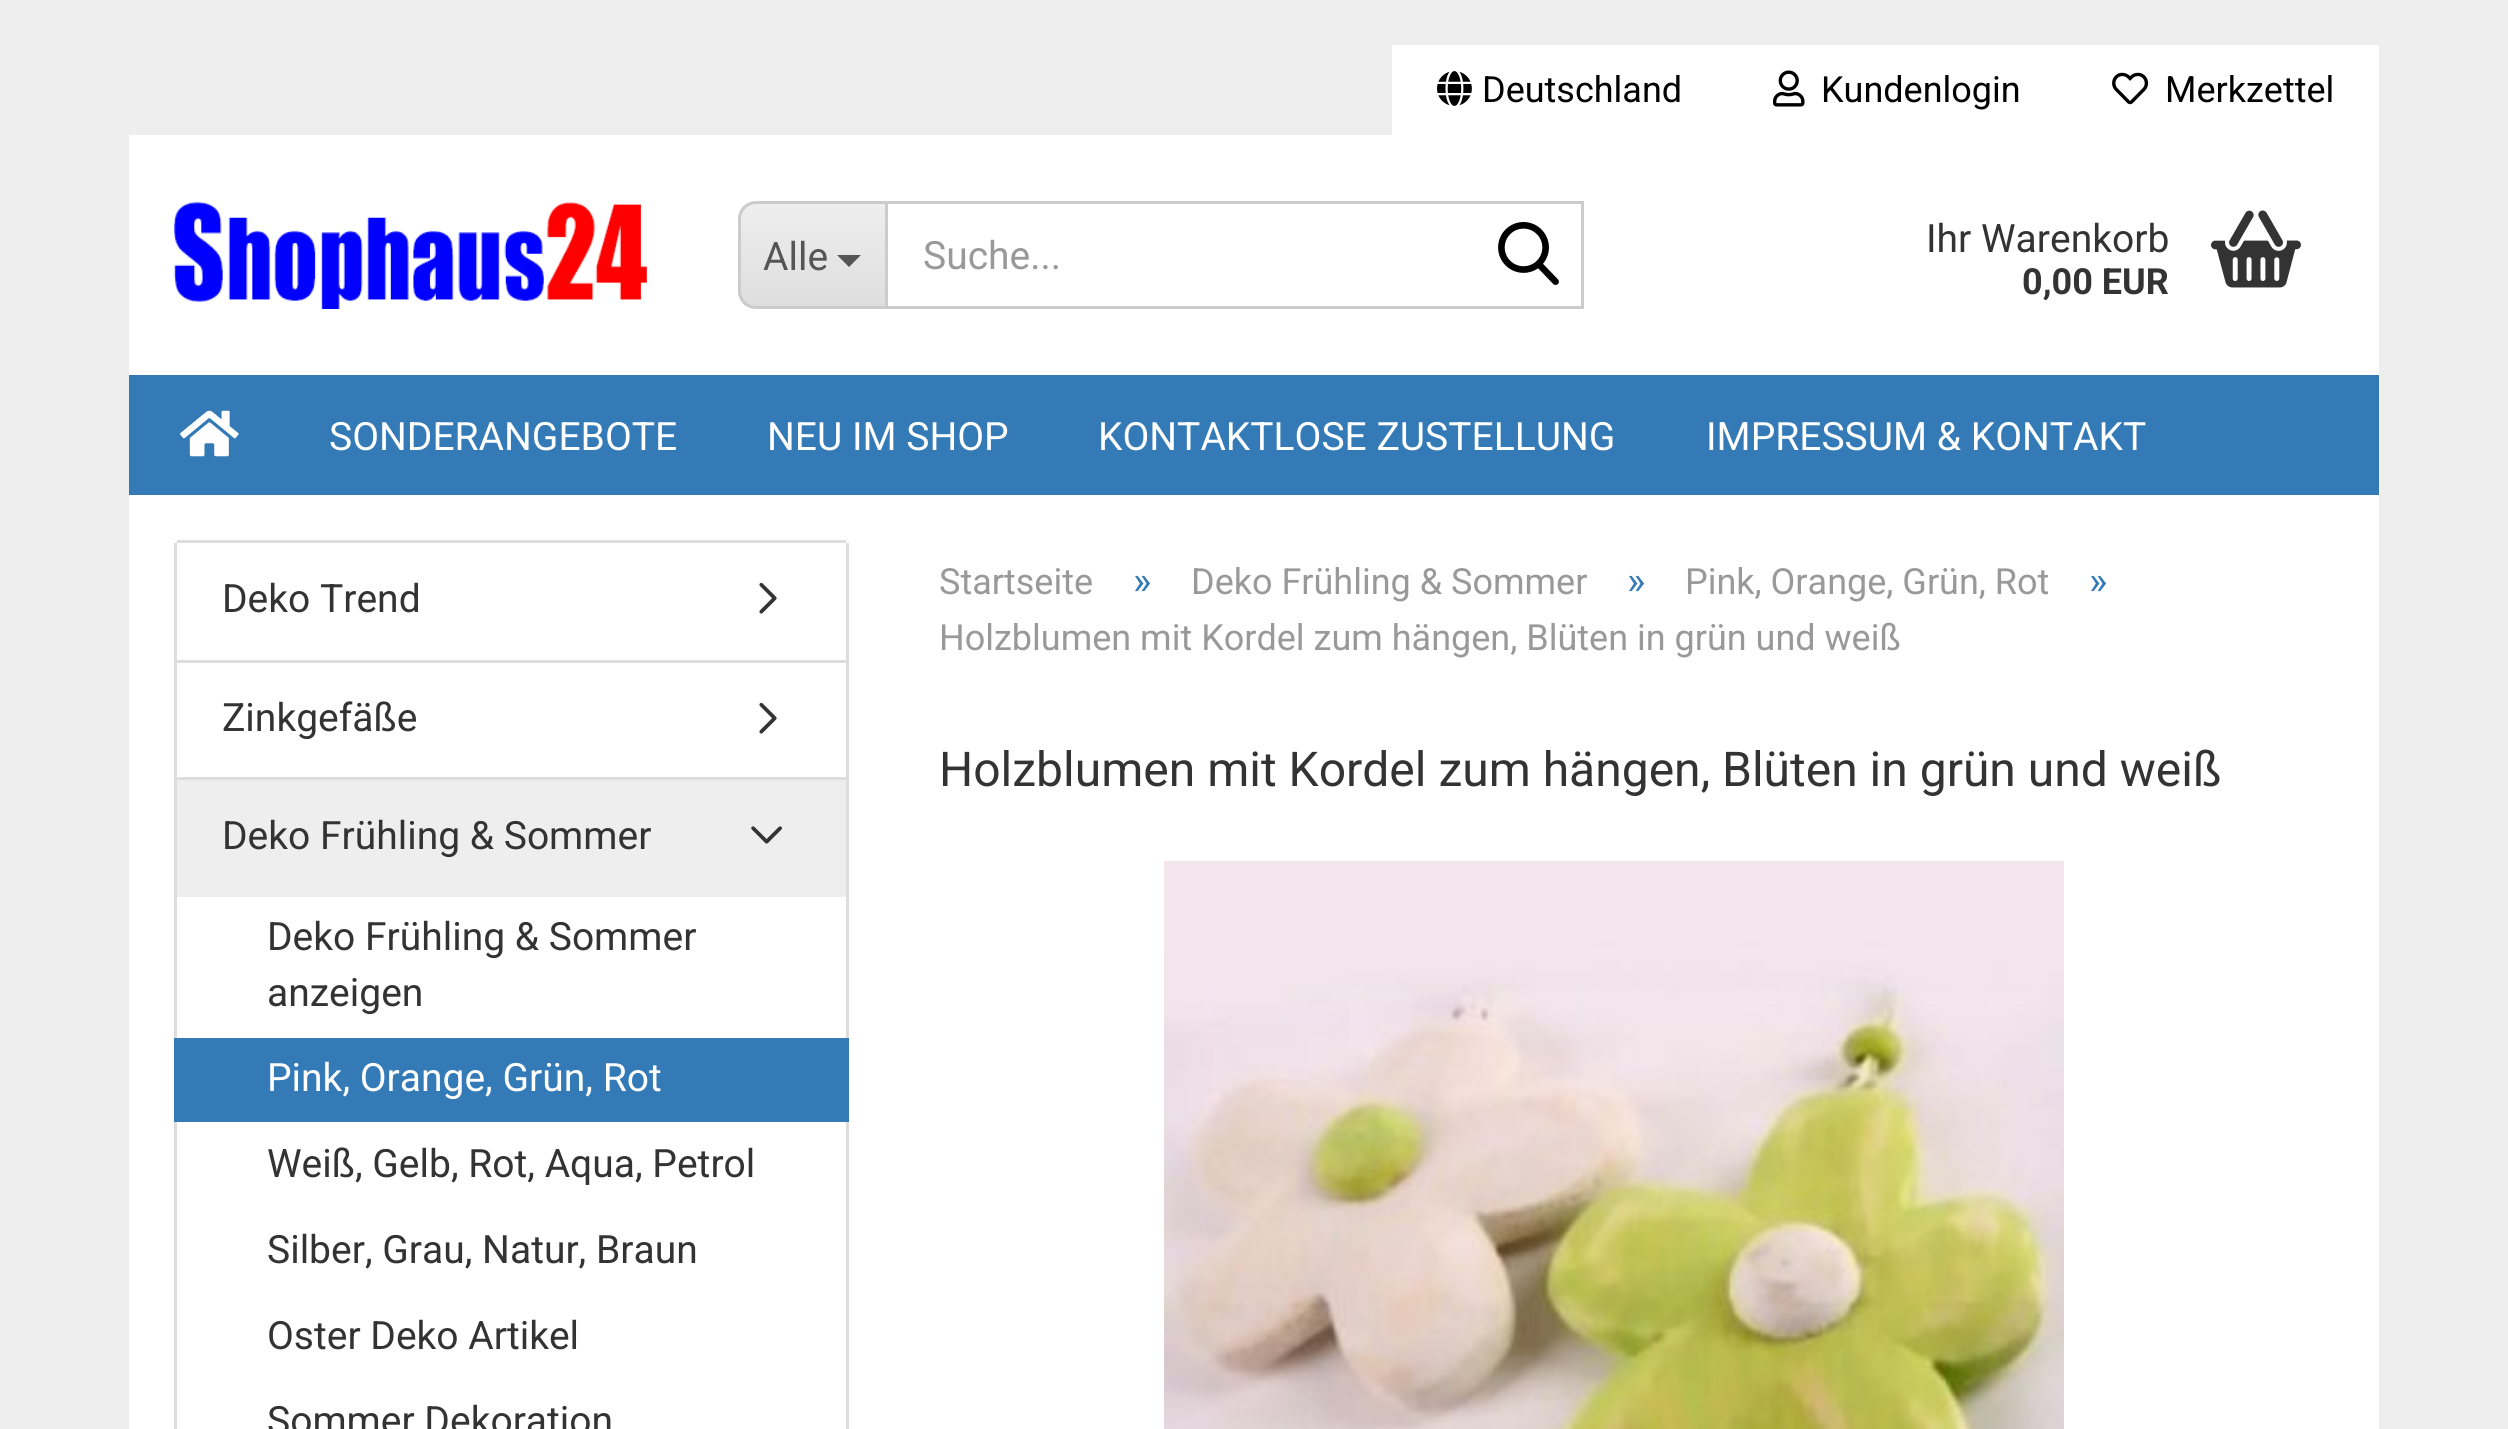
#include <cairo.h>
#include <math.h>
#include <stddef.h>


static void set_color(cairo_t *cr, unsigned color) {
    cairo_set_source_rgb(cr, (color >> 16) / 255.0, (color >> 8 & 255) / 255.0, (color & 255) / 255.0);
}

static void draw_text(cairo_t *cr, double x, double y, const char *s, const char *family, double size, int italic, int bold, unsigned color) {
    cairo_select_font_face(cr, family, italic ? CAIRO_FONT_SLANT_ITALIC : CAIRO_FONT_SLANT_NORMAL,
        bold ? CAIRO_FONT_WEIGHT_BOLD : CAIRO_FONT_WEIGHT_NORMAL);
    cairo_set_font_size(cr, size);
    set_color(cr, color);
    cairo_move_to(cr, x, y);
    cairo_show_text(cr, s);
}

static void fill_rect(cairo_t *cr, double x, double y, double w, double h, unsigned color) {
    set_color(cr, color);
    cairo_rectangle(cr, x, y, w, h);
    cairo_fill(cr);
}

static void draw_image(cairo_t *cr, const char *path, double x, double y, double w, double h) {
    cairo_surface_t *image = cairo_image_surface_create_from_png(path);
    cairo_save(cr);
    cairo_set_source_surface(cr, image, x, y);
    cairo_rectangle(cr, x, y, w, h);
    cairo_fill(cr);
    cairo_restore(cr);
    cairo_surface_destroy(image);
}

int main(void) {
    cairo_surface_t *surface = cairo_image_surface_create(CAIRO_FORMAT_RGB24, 2508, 1429);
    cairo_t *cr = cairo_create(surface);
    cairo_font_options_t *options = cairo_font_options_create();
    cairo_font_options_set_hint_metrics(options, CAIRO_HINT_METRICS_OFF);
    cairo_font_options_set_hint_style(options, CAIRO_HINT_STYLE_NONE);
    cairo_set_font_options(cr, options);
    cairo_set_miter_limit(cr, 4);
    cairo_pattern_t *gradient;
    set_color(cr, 0xEEEEEE);
    cairo_paint(cr);
    fill_rect(cr, 129, 135, 2250, 1294, 0xFFFFFF);
    fill_rect(cr, 1392, 45, 987, 90, 0xFFFFFF);
    draw_image(cr, "assets/img1.png", 1437, 71, 35, 35);
    draw_text(cr, 1482, 102, "Deutschland", "Roboto", 36, 0, 0, 0x000000);
    draw_image(cr, "assets/img2.png", 1773, 70, 32, 37);
    draw_text(cr, 1821, 102, "Kundenlogin", "Roboto", 36, 0, 0, 0x000000);
    draw_image(cr, "assets/img3.png", 2112, 72, 37, 33);
    draw_text(cr, 2165, 102, "Merkzettel", "Roboto", 36, 0, 0, 0x000000);
    draw_image(cr, "assets/img4.png", 174, 202, 473, 107);
    cairo_save(cr);
    cairo_new_path(cr);
    cairo_move_to(cr, 756, 201);
    cairo_line_to(cr, 885, 201);
    cairo_line_to(cr, 885, 309);
    cairo_line_to(cr, 756, 309);
    cairo_curve_to(cr, 746, 309, 738, 301, 738, 291);
    cairo_line_to(cr, 738, 219);
    cairo_curve_to(cr, 738, 209, 746, 201, 756, 201);
    cairo_close_path(cr);
    cairo_clip(cr);
    gradient = cairo_pattern_create_linear(813, 204, 813, 306);
    cairo_pattern_add_color_stop_rgba(gradient, 0, 0.933, 0.933, 0.933, 1);
    cairo_pattern_add_color_stop_rgba(gradient, 1, 0.871, 0.871, 0.871, 1);
    cairo_set_source(cr, gradient);
    cairo_pattern_destroy(gradient);
    cairo_rectangle(cr, 738, 204, 147, 102);
    cairo_fill(cr);
    cairo_restore(cr);
    set_color(cr, 0xCCCCCC);
    cairo_set_fill_rule(cr, CAIRO_FILL_RULE_EVEN_ODD);
    cairo_new_path(cr);
    cairo_move_to(cr, 756, 201);
    cairo_line_to(cr, 885, 201);
    cairo_line_to(cr, 885, 309);
    cairo_line_to(cr, 756, 309);
    cairo_curve_to(cr, 746, 309, 738, 301, 738, 291);
    cairo_line_to(cr, 738, 219);
    cairo_curve_to(cr, 738, 209, 746, 201, 756, 201);
    cairo_close_path(cr);
    cairo_move_to(cr, 756, 204);
    cairo_line_to(cr, 885, 204);
    cairo_line_to(cr, 885, 306);
    cairo_line_to(cr, 756, 306);
    cairo_curve_to(cr, 748, 306, 741, 299, 741, 291);
    cairo_line_to(cr, 741, 219);
    cairo_curve_to(cr, 741, 211, 748, 204, 756, 204);
    cairo_close_path(cr);
    cairo_fill(cr);
    draw_text(cr, 763, 270, "Alle", "Roboto", 39, 0, 0, 0x555555);
    cairo_set_fill_rule(cr, CAIRO_FILL_RULE_WINDING);
    cairo_new_path(cr);
    cairo_move_to(cr, 837, 255);
    cairo_line_to(cr, 861, 255);
    cairo_line_to(cr, 849, 267);
    cairo_close_path(cr);
    cairo_fill(cr);
    cairo_rectangle(cr, 886.5, 202.5, 696, 105);
    set_color(cr, 0xCCCCCC);
    cairo_set_line_width(cr, 3);
    cairo_stroke(cr);
    draw_text(cr, 923, 269, "Suche...", "Roboto", 39, 0, 0, 0x999999);
    draw_image(cr, "assets/img5.png", 1498, 222, 61, 63);
    draw_text(cr, 1926, 252, "Ihr Warenkorb", "Roboto", 39, 0, 0, 0x333333);
    draw_text(cr, 2022, 294, "0,00 EUR", "Roboto", 36, 0, 1, 0x333333);
    draw_image(cr, "assets/img6.png", 2211, 210, 90, 78);
    fill_rect(cr, 129, 375, 2250, 120, 0x337AB7);
    draw_image(cr, "assets/img7.png", 180, 410, 59, 47);
    draw_text(cr, 329, 450, "SONDERANGEBOTE", "Roboto", 39, 0, 0, 0xFFFFFF);
    draw_text(cr, 767, 450, "NEU IM SHOP", "Roboto", 39, 0, 0, 0xFFFFFF);
    draw_text(cr, 1098, 450, "KONTAKTLOSE ZUSTELLUNG", "Roboto", 39, 0, 0, 0xFFFFFF);
    draw_text(cr, 1706, 450, "IMPRESSUM & KONTAKT", "Roboto", 39, 0, 0, 0xFFFFFF);
    fill_rect(cr, 177, 540, 669, 3, 0xDDDDDD);
    fill_rect(cr, 846, 543, 3, 886, 0xDDDDDD);
    fill_rect(cr, 174, 543, 3, 886, 0xDDDDDD);
    fill_rect(cr, 177, 660, 669, 3, 0xDDDDDD);
    draw_text(cr, 222, 612, "Deko Trend", "Roboto", 39, 0, 0, 0x333333);
    draw_image(cr, "assets/img8.png", 759, 582, 18, 32);
    fill_rect(cr, 177, 777, 669, 3, 0xDDDDDD);
    draw_text(cr, 222, 731, "Zinkgefäße", "Roboto", 39, 0, 0, 0x333333);
    draw_image(cr, "assets/img8.png", 759, 702, 18, 32);
    fill_rect(cr, 177, 780, 669, 117, 0xEEEEEE);
    draw_text(cr, 222, 849, "Deko Frühling & Sommer", "Roboto", 39, 0, 0, 0x333333);
    draw_image(cr, "assets/img9.png", 751, 826, 31, 18);
    draw_text(cr, 267, 950, "Deko Frühling & Sommer", "Roboto", 39, 0, 0, 0x333333);
    draw_text(cr, 267, 1006, "anzeigen", "Roboto", 39, 0, 0, 0x333333);
    fill_rect(cr, 174, 1038, 675, 84, 0x337AB7);
    draw_text(cr, 267, 1091, "Pink, Orange, Grün, Rot", "Roboto", 39, 0, 0, 0xFFFFFF);
    draw_text(cr, 267, 1177, "Weiß, Gelb, Rot, Aqua, Petrol", "Roboto", 39, 0, 0, 0x333333);
    draw_text(cr, 267, 1263, "Silber, Grau, Natur, Braun", "Roboto", 39, 0, 0, 0x333333);
    draw_text(cr, 267, 1349, "Oster Deko Artikel", "Roboto", 39, 0, 0, 0x333333);
    draw_text(cr, 267, 1434, "Sommer Dekoration", "Roboto", 39, 0, 0, 0x333333);
    draw_text(cr, 939, 594, "Startseite", "Roboto", 36, 0, 0, 0x999999);
    draw_text(cr, 1133, 594, "»", "Roboto", 39, 0, 0, 0x337AB7);
    draw_text(cr, 1191, 594, "Deko Frühling & Sommer", "Roboto", 36, 0, 0, 0x999999);
    draw_text(cr, 1627, 594, "»", "Roboto", 39, 0, 0, 0x337AB7);
    draw_text(cr, 1685, 594, "Pink, Orange, Grün, Rot", "Roboto", 36, 0, 0, 0x999999);
    draw_text(cr, 2089, 594, "»", "Roboto", 39, 0, 0, 0x337AB7);
    draw_text(cr, 939, 650, "Holzblumen mit Kordel zum hängen, Blüten in grün und weiß", "Roboto", 36, 0, 0, 0x999999);
    draw_text(cr, 939, 786, "Holzblumen mit Kordel zum hängen, Blüten in grün und weiß", "Roboto", 48, 0, 0, 0x333333);
    draw_image(cr, "assets/img10.png", 1164, 861, 900, 568);
    cairo_surface_write_to_png(surface, "output.png");
    cairo_font_options_destroy(options);
    cairo_destroy(cr);
    cairo_surface_destroy(surface);
    return 0;
}
